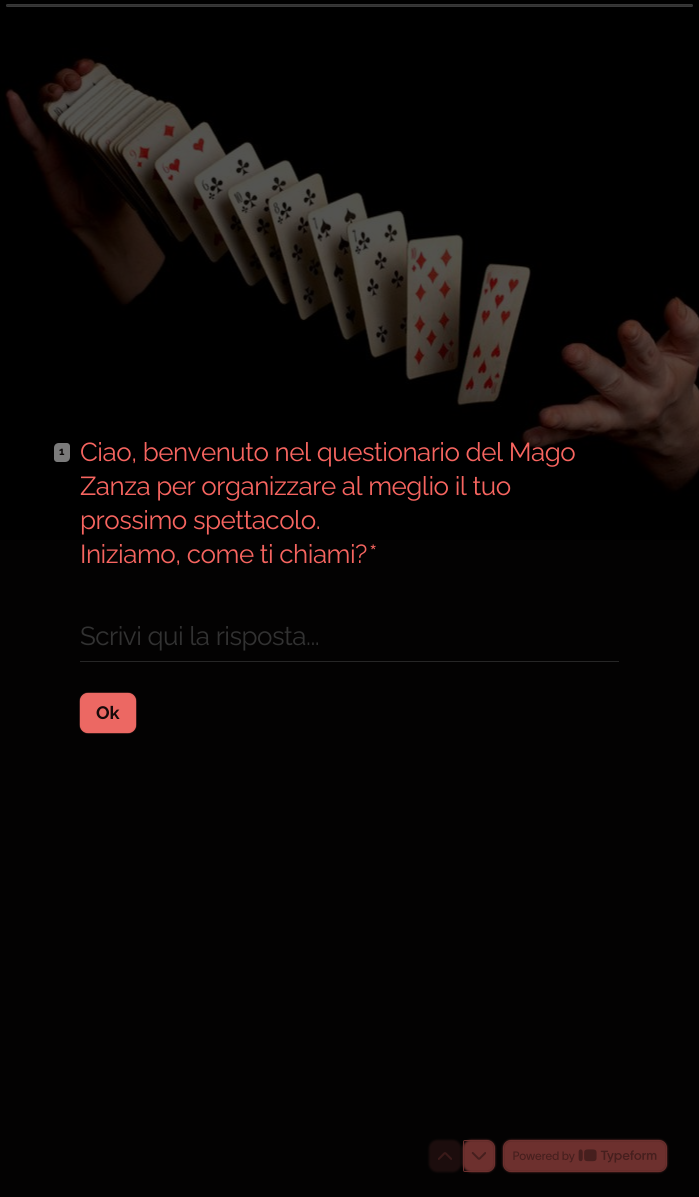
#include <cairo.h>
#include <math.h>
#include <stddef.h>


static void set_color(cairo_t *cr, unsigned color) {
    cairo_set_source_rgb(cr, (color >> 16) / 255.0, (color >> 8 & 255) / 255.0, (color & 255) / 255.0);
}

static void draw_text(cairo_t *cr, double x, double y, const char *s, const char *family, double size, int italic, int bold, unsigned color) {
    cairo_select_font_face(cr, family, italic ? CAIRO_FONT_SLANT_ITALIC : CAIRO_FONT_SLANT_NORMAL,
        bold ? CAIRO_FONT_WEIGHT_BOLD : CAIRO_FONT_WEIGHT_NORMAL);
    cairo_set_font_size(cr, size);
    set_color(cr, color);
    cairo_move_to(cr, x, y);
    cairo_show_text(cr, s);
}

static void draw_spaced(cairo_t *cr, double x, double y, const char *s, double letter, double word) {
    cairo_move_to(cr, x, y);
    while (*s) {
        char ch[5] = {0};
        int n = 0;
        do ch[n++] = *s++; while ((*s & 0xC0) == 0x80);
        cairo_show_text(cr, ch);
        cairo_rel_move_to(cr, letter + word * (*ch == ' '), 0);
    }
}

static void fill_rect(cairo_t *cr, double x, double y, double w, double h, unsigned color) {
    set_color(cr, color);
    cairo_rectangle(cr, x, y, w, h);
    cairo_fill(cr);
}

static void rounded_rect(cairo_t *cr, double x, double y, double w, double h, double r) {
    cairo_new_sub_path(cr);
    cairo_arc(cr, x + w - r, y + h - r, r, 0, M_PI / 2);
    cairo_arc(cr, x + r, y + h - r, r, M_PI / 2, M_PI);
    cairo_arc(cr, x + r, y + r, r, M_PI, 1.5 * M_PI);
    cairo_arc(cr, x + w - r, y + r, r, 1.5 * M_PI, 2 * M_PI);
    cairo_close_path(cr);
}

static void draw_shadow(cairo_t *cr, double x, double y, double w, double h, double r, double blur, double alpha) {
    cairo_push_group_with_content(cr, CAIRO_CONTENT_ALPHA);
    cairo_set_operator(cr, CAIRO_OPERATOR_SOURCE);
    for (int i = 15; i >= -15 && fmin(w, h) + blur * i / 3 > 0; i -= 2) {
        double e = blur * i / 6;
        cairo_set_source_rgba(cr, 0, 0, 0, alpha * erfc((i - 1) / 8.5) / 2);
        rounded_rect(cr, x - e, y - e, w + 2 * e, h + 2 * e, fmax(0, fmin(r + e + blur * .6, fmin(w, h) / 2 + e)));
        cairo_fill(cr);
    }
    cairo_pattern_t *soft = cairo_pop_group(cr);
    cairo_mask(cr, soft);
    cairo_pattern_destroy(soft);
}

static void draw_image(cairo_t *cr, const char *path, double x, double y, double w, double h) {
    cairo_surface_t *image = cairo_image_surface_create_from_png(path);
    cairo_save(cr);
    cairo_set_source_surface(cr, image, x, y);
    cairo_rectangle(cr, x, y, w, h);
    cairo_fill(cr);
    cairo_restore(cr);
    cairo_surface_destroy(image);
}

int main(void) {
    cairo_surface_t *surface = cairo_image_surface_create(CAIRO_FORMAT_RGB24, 699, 1197);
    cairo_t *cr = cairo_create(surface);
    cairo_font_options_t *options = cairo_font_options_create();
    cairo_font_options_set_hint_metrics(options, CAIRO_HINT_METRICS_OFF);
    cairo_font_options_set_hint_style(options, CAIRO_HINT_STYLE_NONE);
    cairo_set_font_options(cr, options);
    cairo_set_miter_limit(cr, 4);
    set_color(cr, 0x030202);
    cairo_paint(cr);
    draw_image(cr, "assets/img1.png", 0, 0, 699, 540);
    set_color(cr, 0x313131);
    rounded_rect(cr, 6, 4, 687, 3, 1.5);
    cairo_fill(cr);
    cairo_rectangle(cr, 6.5, 4.5, 686, 2);
    cairo_set_source_rgba(cr, 0.478, 0.478, 0.478, 0.1);
    cairo_set_line_width(cr, 1);
    cairo_stroke(cr);
    set_color(cr, 0x7A7A7A);
    cairo_new_path(cr);
    cairo_move_to(cr, 59, 443);
    cairo_line_to(cr, 67, 443);
    cairo_curve_to(cr, 68.5, 443, 70, 444.5, 70, 446);
    cairo_line_to(cr, 70, 457);
    cairo_curve_to(cr, 70, 460, 68, 462, 65, 462);
    cairo_line_to(cr, 57, 462);
    cairo_curve_to(cr, 55.5, 462, 54, 460.5, 54, 459);
    cairo_line_to(cr, 54, 448);
    cairo_curve_to(cr, 54, 445, 56, 443, 59, 443);
    cairo_close_path(cr);
    cairo_fill(cr);
    draw_text(cr, 59, 455, "1", "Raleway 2 Thin", 11, 0, 0, 0x080606);
    cairo_select_font_face(cr, "Raleway Thin", CAIRO_FONT_SLANT_NORMAL, CAIRO_FONT_WEIGHT_NORMAL);
    cairo_set_font_size(cr, 26);
    set_color(cr, 0xF76560);
    draw_spaced(cr, 80, 461, "Ciao, benvenuto nel questionario del Mago", -0.5, 0);
    draw_spaced(cr, 80, 495, "Zanza per organizzare al meglio il tuo", -0.5, 0);
    draw_spaced(cr, 80, 529, "prossimo spettacolo.", -0.5, 0);
    draw_spaced(cr, 80, 563, "Iniziamo, come ti chiami?", -0.5, 0);
    draw_spaced(cr, 369, 563, "*", -0.5, 0);
    fill_rect(cr, 80, 661, 539, 1, 0x262626);
    set_color(cr, 0x323232);
    draw_spaced(cr, 80, 645, "Scrivi qui la risposta...", -0.5, 0);
    rounded_rect(cr, 80.5, 693.5, 55, 39, 7.5);
    set_color(cr, 0xEC6863);
    cairo_stroke(cr);
    set_color(cr, 0xEC6863);
    draw_shadow(cr, 80, 693, 56, 40, 8, 0.5, 1);
    draw_text(cr, 96, 719, "Ok", "Raleway 2 Thin", 18, 0, 0, 0x180A0A);
    set_color(cr, 0x6D302E);
    draw_shadow(cr, 429, 1140, 32, 32, 8, 1, 0.24);
    draw_image(cr, "assets/img2.png", 438, 1152, 14, 8);
    cairo_new_path(cr);
    cairo_move_to(cr, 465, 1140.5);
    cairo_line_to(cr, 487, 1140.5);
    cairo_curve_to(cr, 491, 1140.5, 494.5, 1144, 494.5, 1148);
    cairo_line_to(cr, 494.5, 1164);
    cairo_curve_to(cr, 494.5, 1168, 491, 1171.5, 487, 1171.5);
    cairo_line_to(cr, 465, 1171.5);
    cairo_curve_to(cr, 464, 1171.5, 463.5, 1171, 463.5, 1170);
    cairo_line_to(cr, 463.5, 1142);
    cairo_curve_to(cr, 463.5, 1141, 464, 1140.5, 465, 1140.5);
    cairo_close_path(cr);
    set_color(cr, 0x6D302E);
    cairo_stroke(cr);
    set_color(cr, 0x6D302E);
    draw_shadow(cr, 463, 1140, 32, 32, 8, 1, 1);
    draw_image(cr, "assets/img3.png", 471, 1152, 15, 8);
    rounded_rect(cr, 503.5, 1140.5, 163, 31, 7.5);
    set_color(cr, 0x6D302E);
    cairo_stroke(cr);
    set_color(cr, 0x6D302E);
    draw_shadow(cr, 503, 1140, 164, 32, 8, 1, 1);
    draw_image(cr, "assets/img4.png", 513, 1149, 144, 14);
    cairo_surface_write_to_png(surface, "output.png");
    cairo_font_options_destroy(options);
    cairo_destroy(cr);
    cairo_surface_destroy(surface);
    return 0;
}
